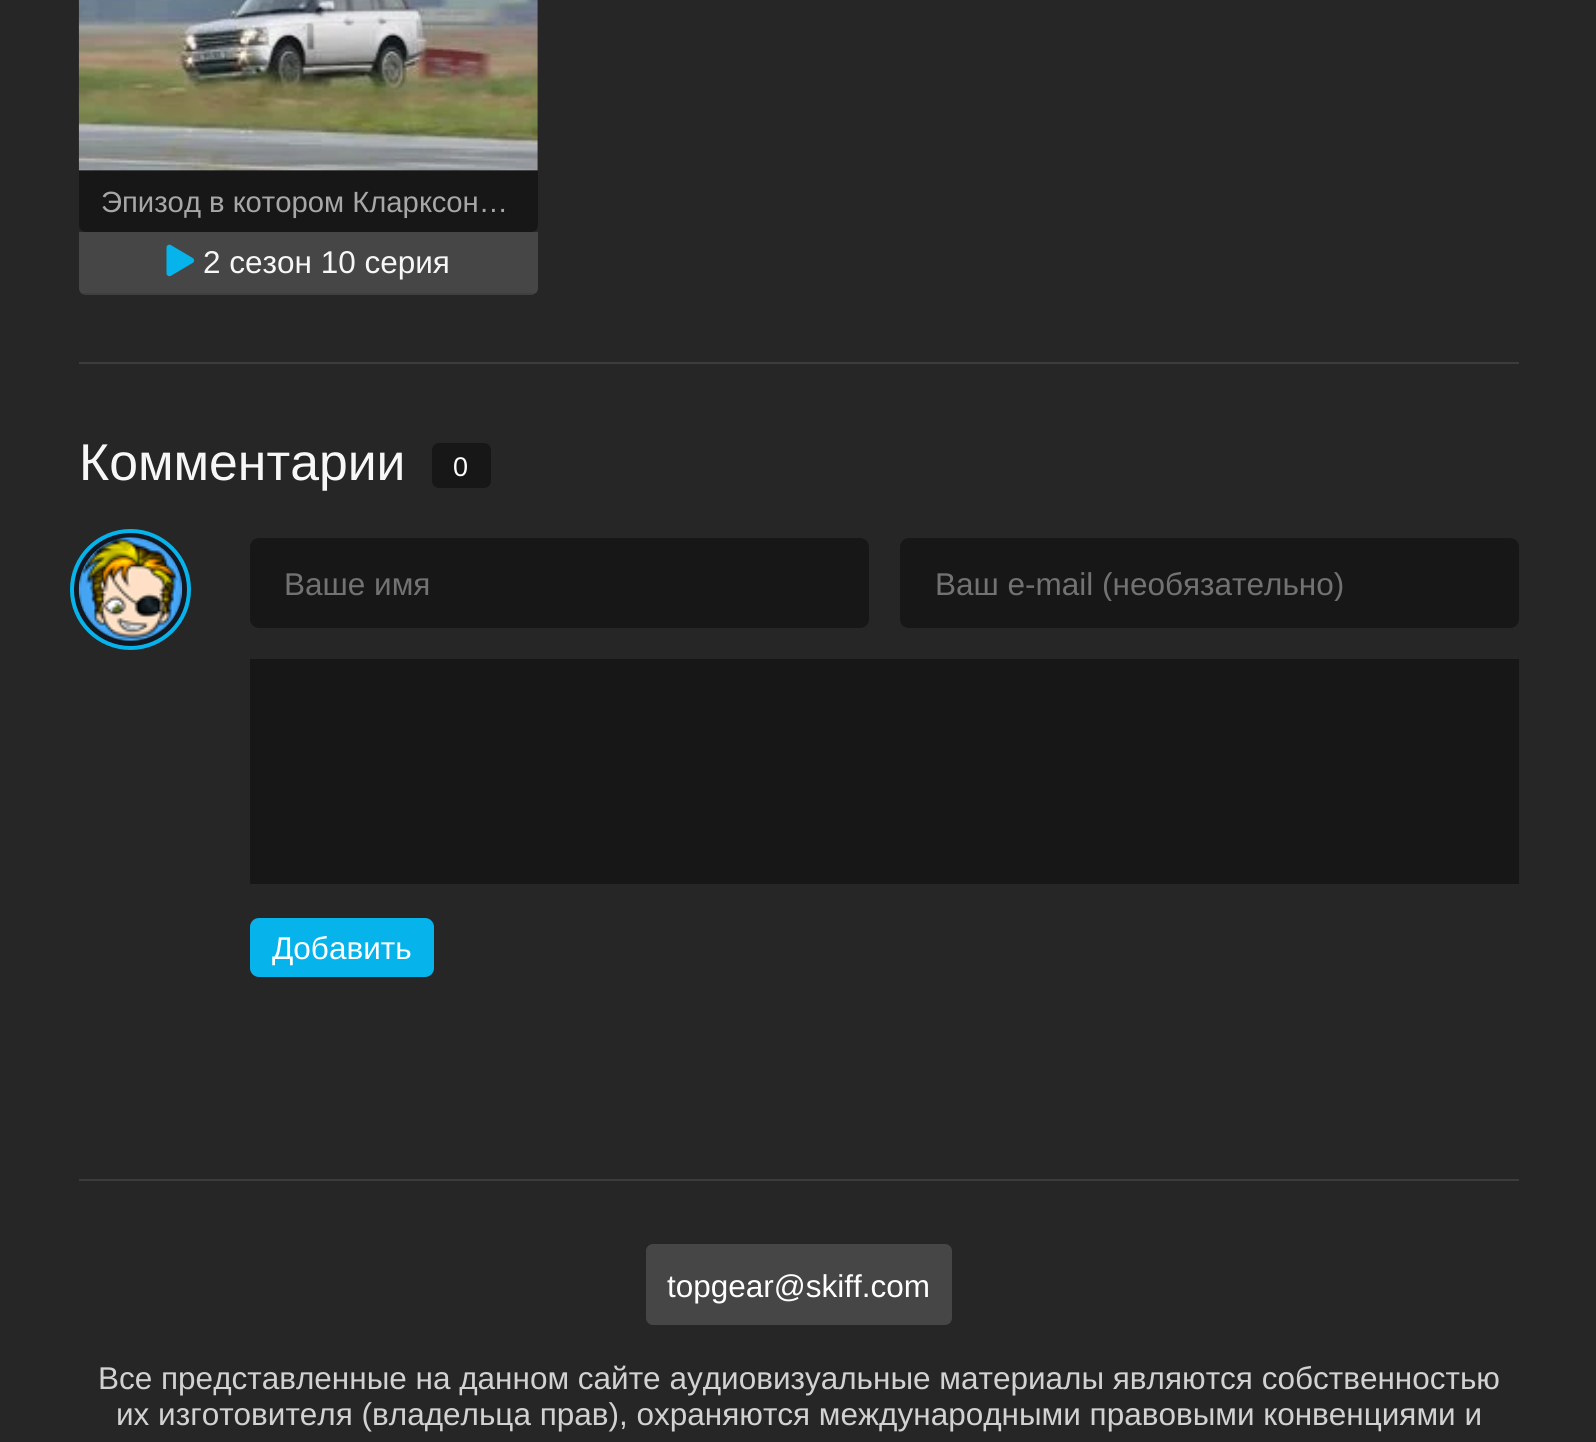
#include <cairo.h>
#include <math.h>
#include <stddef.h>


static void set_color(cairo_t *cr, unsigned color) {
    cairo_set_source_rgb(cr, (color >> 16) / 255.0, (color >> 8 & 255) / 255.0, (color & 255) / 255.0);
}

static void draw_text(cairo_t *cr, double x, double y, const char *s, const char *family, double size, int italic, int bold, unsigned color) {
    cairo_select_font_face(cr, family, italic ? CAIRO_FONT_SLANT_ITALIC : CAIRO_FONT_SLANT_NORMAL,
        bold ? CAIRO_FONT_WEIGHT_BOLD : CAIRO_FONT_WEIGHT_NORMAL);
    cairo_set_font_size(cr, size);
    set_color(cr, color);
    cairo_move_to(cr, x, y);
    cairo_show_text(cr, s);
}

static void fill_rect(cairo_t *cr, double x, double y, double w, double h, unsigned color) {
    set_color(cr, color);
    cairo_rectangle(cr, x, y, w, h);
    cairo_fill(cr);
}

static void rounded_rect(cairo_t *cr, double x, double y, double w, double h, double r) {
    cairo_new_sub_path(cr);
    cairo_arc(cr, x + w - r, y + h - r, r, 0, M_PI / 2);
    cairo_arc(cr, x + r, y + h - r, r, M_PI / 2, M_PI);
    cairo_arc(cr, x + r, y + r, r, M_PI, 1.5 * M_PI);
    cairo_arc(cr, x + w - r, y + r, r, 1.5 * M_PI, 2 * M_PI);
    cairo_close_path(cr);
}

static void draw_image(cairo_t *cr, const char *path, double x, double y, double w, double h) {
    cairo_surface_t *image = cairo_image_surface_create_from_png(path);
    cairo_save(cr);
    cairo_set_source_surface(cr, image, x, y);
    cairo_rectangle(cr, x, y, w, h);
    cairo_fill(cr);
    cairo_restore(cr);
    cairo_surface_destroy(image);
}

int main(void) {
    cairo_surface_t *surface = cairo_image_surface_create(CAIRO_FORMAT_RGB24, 1596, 1442);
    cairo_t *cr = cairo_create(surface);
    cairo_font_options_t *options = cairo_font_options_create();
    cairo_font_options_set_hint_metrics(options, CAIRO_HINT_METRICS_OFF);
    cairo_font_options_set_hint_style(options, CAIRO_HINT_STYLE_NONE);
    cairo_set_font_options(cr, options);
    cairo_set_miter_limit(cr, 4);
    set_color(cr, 0x262626);
    cairo_paint(cr);
    draw_image(cr, "assets/img1.png", 78, 0, 460, 171);
    set_color(cr, 0x171717);
    cairo_new_path(cr);
    cairo_move_to(cr, 79, 171);
    cairo_line_to(cr, 538, 171);
    cairo_line_to(cr, 538, 225);
    cairo_curve_to(cr, 538, 229, 535, 232, 531, 232);
    cairo_line_to(cr, 86, 232);
    cairo_curve_to(cr, 82, 232, 79, 229, 79, 225);
    cairo_close_path(cr);
    cairo_fill(cr);
    draw_text(cr, 101, 212, "Эпизод в котором Кларксон…", "Liberation Sans", 29.25, 0, 0, 0xA7A7A7);
    set_color(cr, 0x464646);
    cairo_new_path(cr);
    cairo_move_to(cr, 79, 232);
    cairo_line_to(cr, 538, 232);
    cairo_line_to(cr, 538, 288);
    cairo_curve_to(cr, 538, 292, 535, 295, 531, 295);
    cairo_line_to(cr, 86, 295);
    cairo_curve_to(cr, 82, 295, 79, 292, 79, 288);
    cairo_close_path(cr);
    cairo_fill(cr);
    cairo_set_source_rgba(cr, 0, 0, 0, 0.1);
    cairo_rectangle(cr, 83, 293, 453, 2);
    cairo_fill(cr);
    draw_image(cr, "assets/img2.png", 166, 244, 29, 33);
    draw_text(cr, 203, 273, "2 сезон 10 серия", "Liberation Sans", 31.5, 0, 0, 0xF7F7F7);
    fill_rect(cr, 79, 362, 1440, 2, 0x3C3C3C);
    draw_text(cr, 79, 480, "Комментарии", "Liberation Sans", 51.75, 0, 0, 0xF7F7F7);
    set_color(cr, 0x171717);
    rounded_rect(cr, 432, 443, 59, 45, 7);
    cairo_fill(cr);
    draw_text(cr, 453, 476, "0", "Liberation Sans", 27, 0, 0, 0xFFFFFF);
    cairo_new_path(cr);
    cairo_arc(cr, 130.5, 589.5, 56, 0, 2 * M_PI);
    set_color(cr, 0x06B4EB);
    cairo_set_line_width(cr, 9);
    cairo_stroke(cr);
    cairo_arc(cr, 130.5, 589.5, 54, 0, 2 * M_PI);
    set_color(cr, 0x131722);
    cairo_set_line_width(cr, 5);
    cairo_stroke(cr);
    draw_image(cr, "assets/img3.png", 78, 537, 105, 104);
    set_color(cr, 0x171717);
    rounded_rect(cr, 250, 538, 619, 90, 9);
    cairo_fill(cr);
    draw_text(cr, 284, 595, "Ваше имя", "Liberation Sans", 31.5, 0, 0, 0x727272);
    set_color(cr, 0x171717);
    rounded_rect(cr, 900, 538, 619, 90, 9);
    cairo_fill(cr);
    cairo_save(cr);
    cairo_rectangle(cr, 934, 565, 551, 36);
    cairo_clip(cr);
    draw_text(cr, 935, 595, "Ваш e-mail (необязательно)", "Liberation Sans", 31.5, 0, 0, 0x727272);
    cairo_restore(cr);
    fill_rect(cr, 250, 659, 1269, 225, 0x171717);
    set_color(cr, 0x06B4EB);
    rounded_rect(cr, 250, 918, 184, 59, 9);
    cairo_fill(cr);
    draw_text(cr, 272, 959, "Добавить", "Liberation Sans", 31.5, 0, 0, 0xFFFFFF);
    fill_rect(cr, 79, 1179, 1440, 2, 0x3C3C3C);
    set_color(cr, 0x464646);
    rounded_rect(cr, 646, 1244, 306, 81, 7);
    cairo_fill(cr);
    draw_text(cr, 667, 1297, "topgear@skiff.com", "Liberation Sans", 31.5, 0, 0, 0xFFFFFF);
    draw_text(cr, 98, 1389, "Все представленные на данном сайте аудиовизуальные материалы являются собственностью", "Liberation Sans", 31.5, 0, 0, 0xD2D2D2);
    draw_text(cr, 116, 1425, "их изготовителя (владельца прав), охраняются международными правовыми конвенциями и", "Liberation Sans", 31.5, 0, 0, 0xD2D2D2);
    cairo_surface_write_to_png(surface, "output.png");
    cairo_font_options_destroy(options);
    cairo_destroy(cr);
    cairo_surface_destroy(surface);
    return 0;
}
